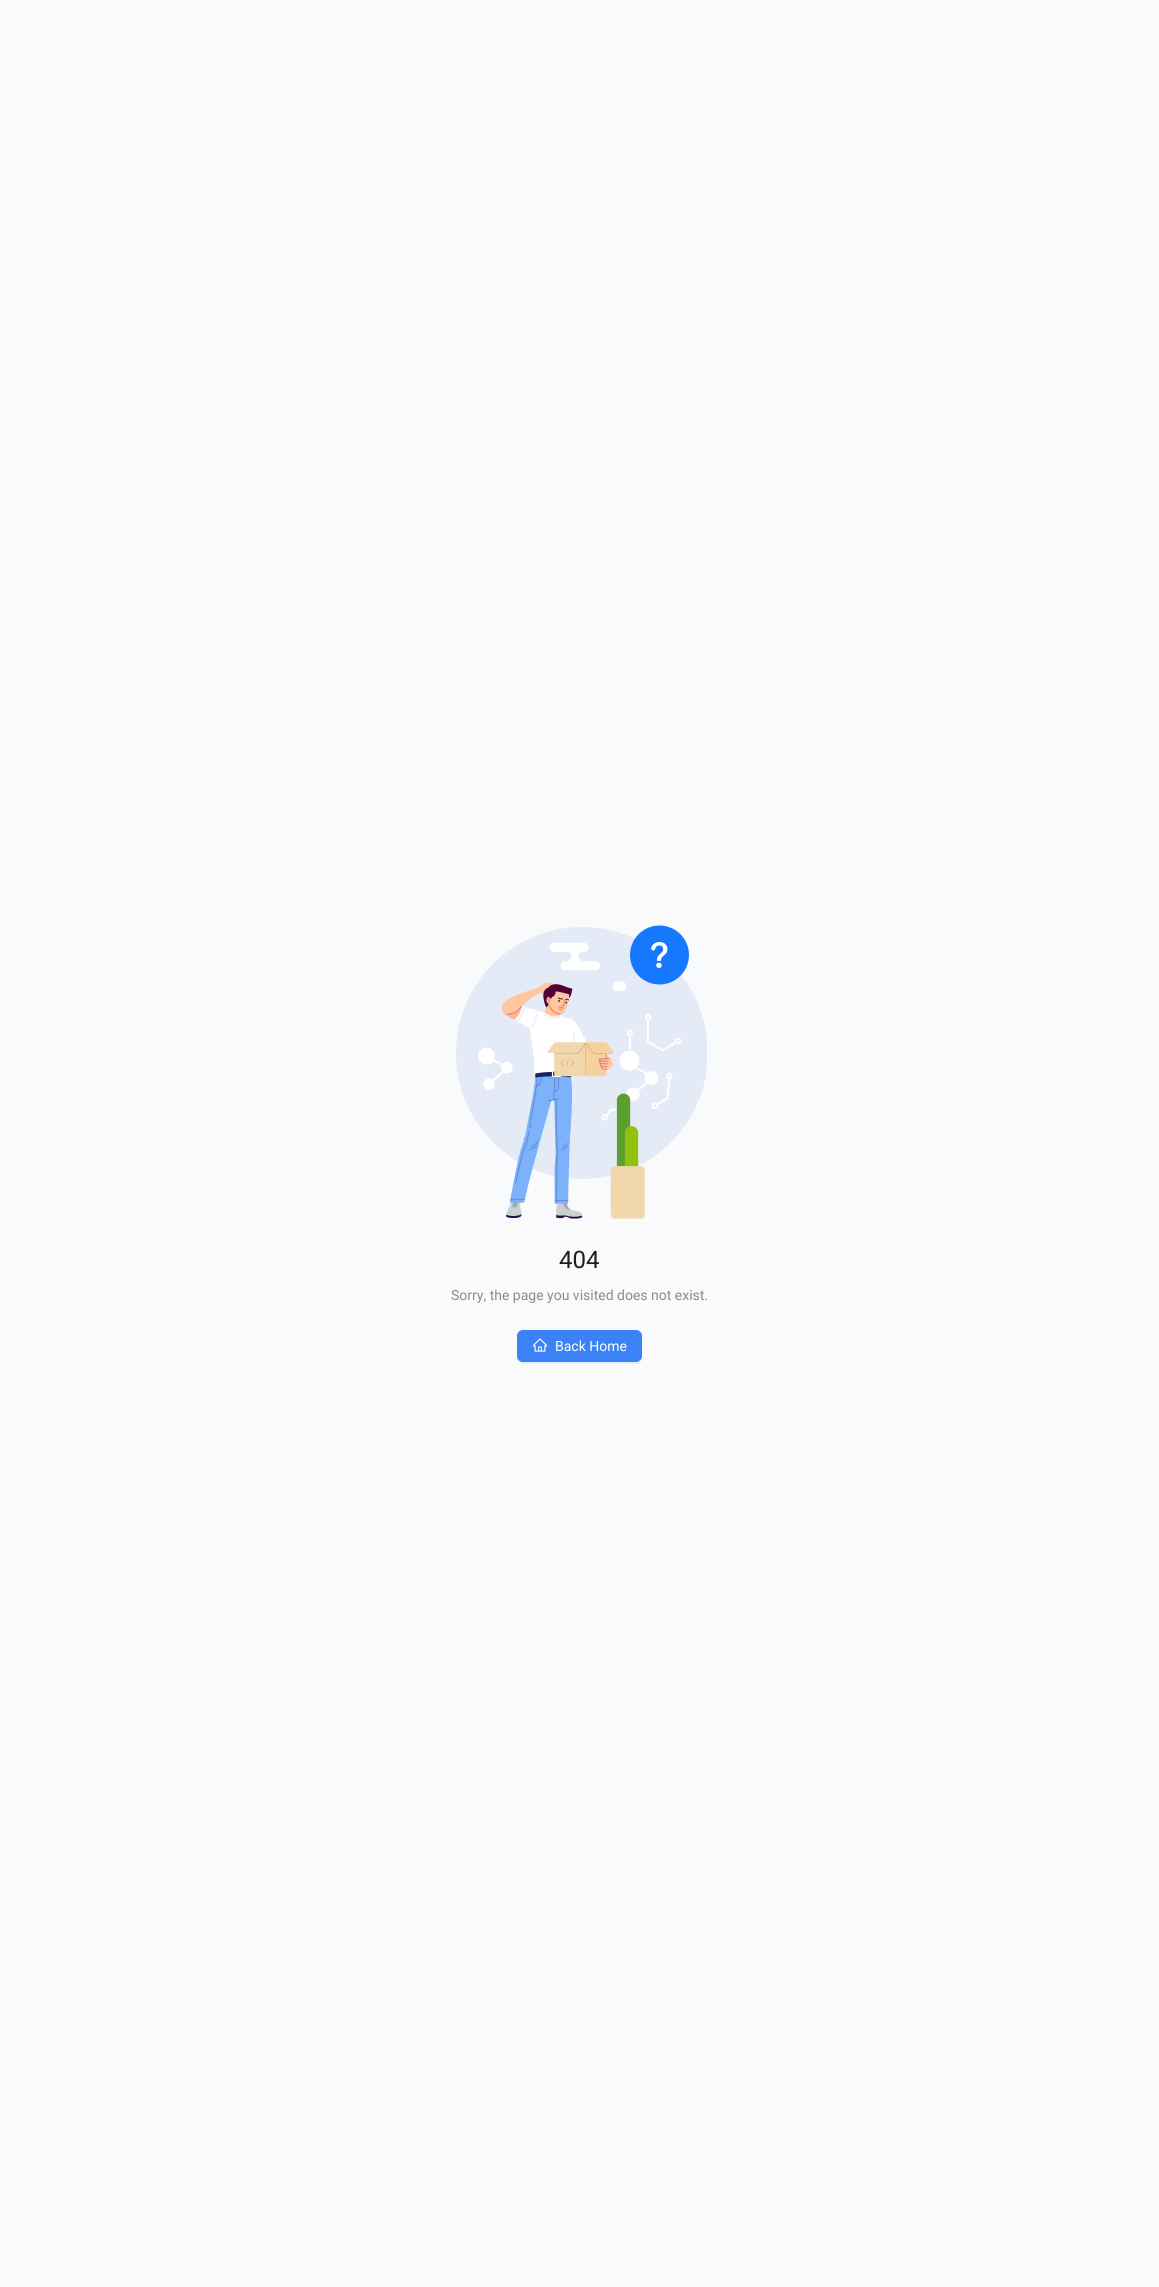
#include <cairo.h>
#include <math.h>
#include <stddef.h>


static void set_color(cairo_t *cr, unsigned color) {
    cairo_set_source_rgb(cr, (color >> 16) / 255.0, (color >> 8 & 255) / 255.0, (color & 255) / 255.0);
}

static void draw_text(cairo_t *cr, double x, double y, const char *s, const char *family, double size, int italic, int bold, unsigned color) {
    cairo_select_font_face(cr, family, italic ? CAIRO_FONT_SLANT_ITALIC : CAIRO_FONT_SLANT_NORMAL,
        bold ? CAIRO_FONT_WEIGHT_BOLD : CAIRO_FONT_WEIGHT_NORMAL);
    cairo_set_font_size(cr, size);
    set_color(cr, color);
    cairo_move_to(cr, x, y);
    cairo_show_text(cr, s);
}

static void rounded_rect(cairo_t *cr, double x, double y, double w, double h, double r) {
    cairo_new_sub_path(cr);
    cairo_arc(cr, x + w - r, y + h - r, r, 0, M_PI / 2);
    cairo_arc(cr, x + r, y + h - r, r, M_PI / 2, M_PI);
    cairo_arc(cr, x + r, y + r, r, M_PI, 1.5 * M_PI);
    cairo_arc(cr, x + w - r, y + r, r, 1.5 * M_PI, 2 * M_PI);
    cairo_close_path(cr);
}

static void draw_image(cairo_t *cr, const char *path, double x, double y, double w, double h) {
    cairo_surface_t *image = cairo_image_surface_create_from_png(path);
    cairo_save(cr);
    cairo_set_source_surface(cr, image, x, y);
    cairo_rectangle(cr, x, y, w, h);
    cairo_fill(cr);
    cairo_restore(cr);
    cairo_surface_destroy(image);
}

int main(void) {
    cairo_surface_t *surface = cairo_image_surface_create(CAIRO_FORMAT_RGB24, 1159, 2287);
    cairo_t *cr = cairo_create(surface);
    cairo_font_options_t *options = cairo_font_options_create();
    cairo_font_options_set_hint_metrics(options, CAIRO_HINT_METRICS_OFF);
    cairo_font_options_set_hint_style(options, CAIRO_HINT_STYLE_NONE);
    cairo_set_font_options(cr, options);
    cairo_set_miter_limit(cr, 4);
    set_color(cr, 0xF9FAFB);
    cairo_paint(cr);
    draw_image(cr, "assets/img1.png", 456, 925, 251, 294);
    draw_text(cr, 559, 1268, "404", "Roboto", 24, 0, 0, 0x1E1E1E);
    draw_text(cr, 451, 1300, "Sorry, the page you visited does not exist.", "Roboto", 14, 0, 0, 0x898A8A);
    set_color(cr, 0xE1F0FB);
    cairo_new_path(cr);
    cairo_move_to(cr, 517, 1356);
    cairo_line_to(cr, 517, 1358);
    cairo_curve_to(cr, 517, 1361, 520, 1364, 523, 1364);
    cairo_line_to(cr, 636, 1364);
    cairo_curve_to(cr, 639, 1364, 642, 1361, 642, 1358);
    cairo_line_to(cr, 642, 1356);
    cairo_curve_to(cr, 642, 1359, 639, 1362, 636, 1362);
    cairo_line_to(cr, 523, 1362);
    cairo_curve_to(cr, 520, 1362, 517, 1359, 517, 1356);
    cairo_close_path(cr);
    cairo_fill(cr);
    set_color(cr, 0x3B82F6);
    rounded_rect(cr, 517.5, 1330.5, 124, 31, 5.5);
    cairo_fill_preserve(cr);
    cairo_set_line_width(cr, 1);
    cairo_stroke(cr);
    draw_image(cr, "assets/img2.png", 533, 1338, 14, 14);
    draw_text(cr, 555, 1351, "Back Home", "Roboto", 14, 0, 0, 0xFFFFFF);
    cairo_surface_write_to_png(surface, "output.png");
    cairo_font_options_destroy(options);
    cairo_destroy(cr);
    cairo_surface_destroy(surface);
    return 0;
}
